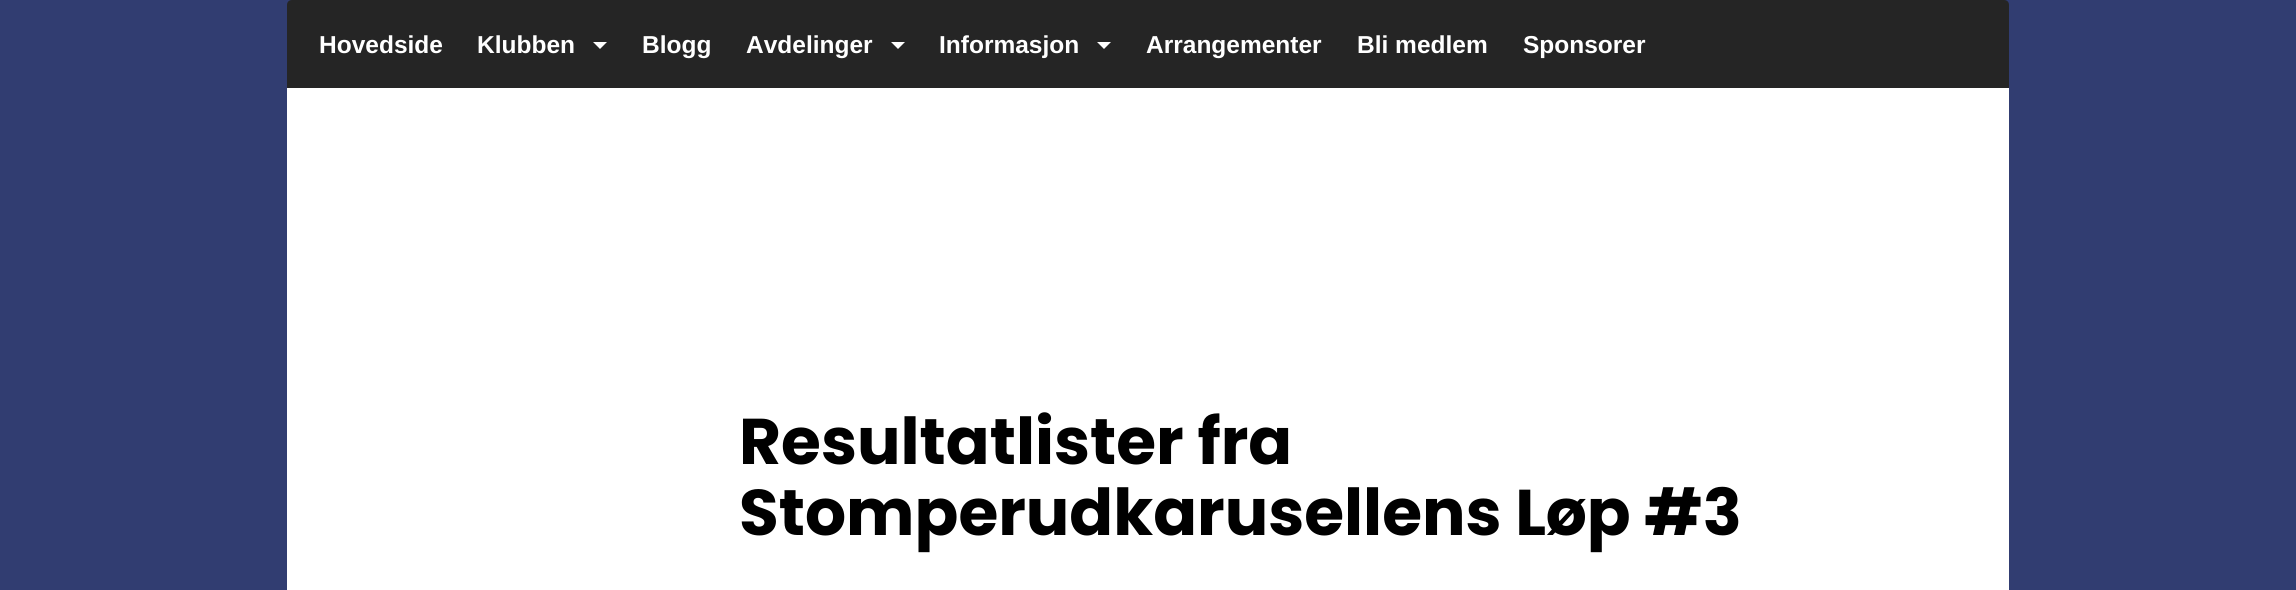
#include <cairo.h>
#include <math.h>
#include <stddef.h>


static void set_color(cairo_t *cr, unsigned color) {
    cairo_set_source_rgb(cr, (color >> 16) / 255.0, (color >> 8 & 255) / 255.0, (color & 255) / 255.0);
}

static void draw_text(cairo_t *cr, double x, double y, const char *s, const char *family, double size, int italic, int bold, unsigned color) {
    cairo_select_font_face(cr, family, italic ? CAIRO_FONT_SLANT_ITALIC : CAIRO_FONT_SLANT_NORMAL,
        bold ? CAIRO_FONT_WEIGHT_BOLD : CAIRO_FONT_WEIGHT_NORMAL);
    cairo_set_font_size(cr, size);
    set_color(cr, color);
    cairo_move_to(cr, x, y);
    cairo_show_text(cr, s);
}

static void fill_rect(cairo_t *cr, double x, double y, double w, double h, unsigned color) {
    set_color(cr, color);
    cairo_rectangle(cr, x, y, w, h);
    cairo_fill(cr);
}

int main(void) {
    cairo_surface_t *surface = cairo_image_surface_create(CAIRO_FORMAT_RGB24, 2296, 590);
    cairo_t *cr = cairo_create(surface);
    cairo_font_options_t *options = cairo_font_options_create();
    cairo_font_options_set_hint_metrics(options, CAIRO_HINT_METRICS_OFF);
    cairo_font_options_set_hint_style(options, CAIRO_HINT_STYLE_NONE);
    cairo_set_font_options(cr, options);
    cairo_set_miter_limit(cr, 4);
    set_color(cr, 0x313D71);
    cairo_paint(cr);
    set_color(cr, 0x252525);
    cairo_new_path(cr);
    cairo_move_to(cr, 292, 0);
    cairo_line_to(cr, 2004, 0);
    cairo_curve_to(cr, 2007, 0, 2009, 2, 2009, 5);
    cairo_line_to(cr, 2009, 88);
    cairo_line_to(cr, 287, 88);
    cairo_line_to(cr, 287, 5);
    cairo_curve_to(cr, 287, 2, 289, 0, 292, 0);
    cairo_close_path(cr);
    cairo_fill(cr);
    draw_text(cr, 319, 53, "Hovedside", "Liberation Sans", 24.5, 0, 1, 0xFFFFFF);
    draw_text(cr, 477, 53, "Klubben", "Liberation Sans", 24.5, 0, 1, 0xFFFFFF);
    cairo_new_path(cr);
    cairo_move_to(cr, 593, 42);
    cairo_line_to(cr, 607, 42);
    cairo_line_to(cr, 600, 49);
    cairo_close_path(cr);
    cairo_fill(cr);
    draw_text(cr, 642, 53, "Blogg", "Liberation Sans", 24.5, 0, 1, 0xFFFFFF);
    draw_text(cr, 746, 53, "Avdelinger", "Liberation Sans", 24.5, 0, 1, 0xFFFFFF);
    cairo_new_path(cr);
    cairo_move_to(cr, 891, 42);
    cairo_line_to(cr, 905, 42);
    cairo_line_to(cr, 898, 49);
    cairo_close_path(cr);
    cairo_fill(cr);
    draw_text(cr, 939, 53, "Informasjon", "Liberation Sans", 24.5, 0, 1, 0xFFFFFF);
    cairo_new_path(cr);
    cairo_move_to(cr, 1097, 42);
    cairo_line_to(cr, 1111, 42);
    cairo_line_to(cr, 1104, 49);
    cairo_close_path(cr);
    cairo_fill(cr);
    draw_text(cr, 1146, 53, "Arrangementer", "Liberation Sans", 24.5, 0, 1, 0xFFFFFF);
    draw_text(cr, 1357, 53, "Bli medlem", "Liberation Sans", 24.5, 0, 1, 0xFFFFFF);
    draw_text(cr, 1523, 53, "Sponsorer", "Liberation Sans", 24.5, 0, 1, 0xFFFFFF);
    fill_rect(cr, 287, 88, 1722, 502, 0xFFFFFF);
    draw_text(cr, 739, 464, "Resultatlister fra", "Poppins", 64.6, 0, 1, 0x000000);
    draw_text(cr, 739, 535, "Stomperudkarusellens Løp #3", "Poppins", 64.6, 0, 1, 0x000000);
    cairo_surface_write_to_png(surface, "output.png");
    cairo_font_options_destroy(options);
    cairo_destroy(cr);
    cairo_surface_destroy(surface);
    return 0;
}
